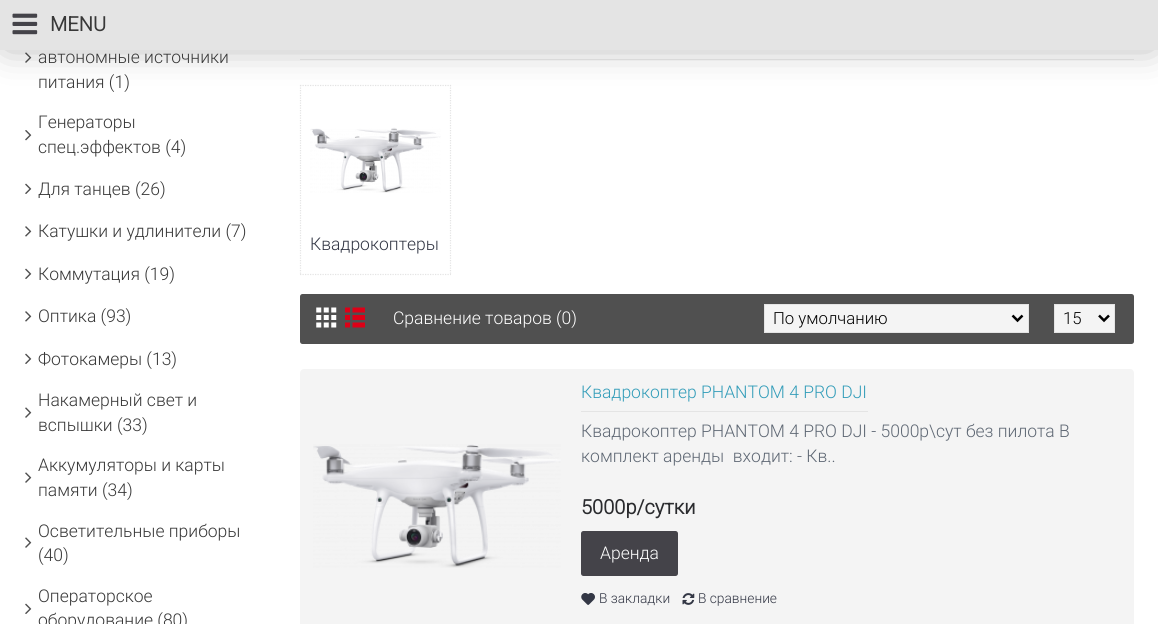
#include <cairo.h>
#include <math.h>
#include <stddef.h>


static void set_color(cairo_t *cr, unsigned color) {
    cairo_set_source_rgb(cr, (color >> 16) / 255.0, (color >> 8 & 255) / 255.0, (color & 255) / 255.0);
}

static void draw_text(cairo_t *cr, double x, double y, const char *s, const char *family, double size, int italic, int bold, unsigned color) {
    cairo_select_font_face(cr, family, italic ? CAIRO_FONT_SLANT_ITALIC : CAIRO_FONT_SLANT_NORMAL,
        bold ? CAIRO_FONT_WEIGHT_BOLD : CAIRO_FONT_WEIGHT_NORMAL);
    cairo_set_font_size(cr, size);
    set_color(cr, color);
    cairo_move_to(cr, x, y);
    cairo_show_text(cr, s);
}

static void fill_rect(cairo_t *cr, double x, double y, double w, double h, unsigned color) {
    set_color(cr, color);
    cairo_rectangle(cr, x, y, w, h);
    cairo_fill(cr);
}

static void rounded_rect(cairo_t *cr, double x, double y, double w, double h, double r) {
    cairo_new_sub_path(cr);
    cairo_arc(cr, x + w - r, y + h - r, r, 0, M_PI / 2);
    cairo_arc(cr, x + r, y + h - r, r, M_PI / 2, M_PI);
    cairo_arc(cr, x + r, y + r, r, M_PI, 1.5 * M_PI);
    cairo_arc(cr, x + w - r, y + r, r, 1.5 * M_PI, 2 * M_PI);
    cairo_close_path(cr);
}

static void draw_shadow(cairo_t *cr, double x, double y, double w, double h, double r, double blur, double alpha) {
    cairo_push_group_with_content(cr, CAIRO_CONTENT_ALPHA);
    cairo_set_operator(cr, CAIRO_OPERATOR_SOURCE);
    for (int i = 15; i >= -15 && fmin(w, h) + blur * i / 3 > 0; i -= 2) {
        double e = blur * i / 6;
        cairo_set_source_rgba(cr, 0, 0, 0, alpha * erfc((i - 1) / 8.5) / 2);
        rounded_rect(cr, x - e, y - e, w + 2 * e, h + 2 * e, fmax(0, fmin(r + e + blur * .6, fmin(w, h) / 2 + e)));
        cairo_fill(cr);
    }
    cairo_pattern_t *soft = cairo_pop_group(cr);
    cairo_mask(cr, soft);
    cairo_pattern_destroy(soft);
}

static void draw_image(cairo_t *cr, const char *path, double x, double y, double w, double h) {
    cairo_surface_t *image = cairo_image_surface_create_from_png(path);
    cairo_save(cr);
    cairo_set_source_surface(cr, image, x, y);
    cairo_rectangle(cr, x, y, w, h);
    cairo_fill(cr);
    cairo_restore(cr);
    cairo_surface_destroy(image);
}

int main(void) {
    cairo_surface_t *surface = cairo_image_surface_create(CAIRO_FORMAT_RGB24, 1158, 624);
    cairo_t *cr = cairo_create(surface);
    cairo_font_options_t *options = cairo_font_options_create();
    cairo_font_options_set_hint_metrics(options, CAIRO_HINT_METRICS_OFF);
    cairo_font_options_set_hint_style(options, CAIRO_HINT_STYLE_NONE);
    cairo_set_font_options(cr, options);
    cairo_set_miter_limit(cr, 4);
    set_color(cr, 0xFFFFFF);
    cairo_paint(cr);
    draw_image(cr, "assets/img2.png", 25, 52, 7, 11);
    fill_rect(cr, 300, 59, 834, 1, 0xEEEEEE);
    cairo_new_path(cr);
    cairo_move_to(cr, 300, 85.5);
    cairo_line_to(cr, 451, 85.5);
    set_color(cr, 0xE4E4E4);
    cairo_set_line_width(cr, 1.2);
    cairo_set_dash(cr, (double[]){1.25, 1.25}, 2, 0);
    cairo_stroke(cr);
    cairo_new_path(cr);
    cairo_move_to(cr, 450.5, 85);
    cairo_line_to(cr, 450.5, 275);
    cairo_stroke(cr);
    cairo_new_path(cr);
    cairo_move_to(cr, 300, 274.5);
    cairo_line_to(cr, 451, 274.5);
    cairo_stroke(cr);
    cairo_new_path(cr);
    cairo_move_to(cr, 300.5, 85);
    cairo_line_to(cr, 300.5, 275);
    cairo_stroke(cr);
    set_color(cr, 0x000000);
    draw_shadow(cr, 6, 8, 1147, 37, 0, 19, 0.33);
    fill_rect(cr, 0, 0, 1158, 50, 0xE4E4E4);
    draw_image(cr, "assets/img1.png", 12, 13, 26, 22);
    draw_text(cr, 50, 31, "MENU", "Roboto", 20, 0, 1, 0x383838);
    draw_text(cr, 38, 63, "автономные источники", "Roboto Light", 17.5, 0, 0, 0x383838);
    draw_text(cr, 38, 88, "питания (1)", "Roboto Light", 17.5, 0, 0, 0x383838);
    draw_text(cr, 38, 128, "Генераторы", "Roboto Light", 17.5, 0, 0, 0x383838);
    draw_image(cr, "assets/img3.png", 25, 130, 7, 11);
    draw_text(cr, 38, 153, "спец.эффектов (4)", "Roboto Light", 17.5, 0, 0, 0x383838);
    draw_image(cr, "assets/img4.png", 25, 183, 7, 11);
    draw_text(cr, 38, 195, "Для танцев (26)", "Roboto Light", 17.5, 0, 0, 0x383838);
    draw_image(cr, "assets/img5.png", 25, 226, 7, 11);
    draw_text(cr, 38, 237, "Катушки и удлинители (7)", "Roboto Light", 17.5, 0, 0, 0x383838);
    draw_image(cr, "assets/img4.png", 25, 268, 7, 11);
    draw_text(cr, 38, 280, "Коммутация (19)", "Roboto Light", 17.5, 0, 0, 0x383838);
    draw_image(cr, "assets/img5.png", 25, 311, 7, 11);
    draw_text(cr, 38, 322, "Оптика (93)", "Roboto Light", 17.5, 0, 0, 0x383838);
    draw_image(cr, "assets/img4.png", 25, 353, 7, 11);
    draw_text(cr, 38, 365, "Фотокамеры (13)", "Roboto Light", 17.5, 0, 0, 0x383838);
    draw_text(cr, 38, 406, "Накамерный свет и", "Roboto Light", 17.5, 0, 0, 0x383838);
    draw_image(cr, "assets/img2.png", 25, 407, 7, 11);
    draw_text(cr, 38, 431, "вспышки (33)", "Roboto Light", 17.5, 0, 0, 0x383838);
    draw_text(cr, 38, 471, "Аккумуляторы и карты", "Roboto Light", 17.5, 0, 0, 0x383838);
    draw_image(cr, "assets/img2.png", 25, 472, 7, 11);
    draw_text(cr, 38, 496, "памяти (34)", "Roboto Light", 17.5, 0, 0, 0x383838);
    draw_text(cr, 38, 537, "Осветительные приборы", "Roboto Light", 17.5, 0, 0, 0x383838);
    draw_image(cr, "assets/img2.png", 25, 537, 7, 11);
    draw_text(cr, 38, 561, "(40)", "Roboto Light", 17.5, 0, 0, 0x383838);
    draw_text(cr, 38, 602, "Операторское", "Roboto Light", 17.5, 0, 0, 0x383838);
    draw_image(cr, "assets/img4.png", 25, 603, 7, 11);
    draw_text(cr, 38, 626, "оборудование (80)", "Roboto Light", 17.5, 0, 0, 0x383838);
    draw_image(cr, "assets/img6.png", 310, 127, 131, 66);
    draw_text(cr, 310, 250, "Квадрокоптеры", "Roboto Light", 17.5, 0, 0, 0x333745);
    set_color(cr, 0x505050);
    rounded_rect(cr, 300, 294, 834, 50, 2.5);
    cairo_fill(cr);
    draw_image(cr, "assets/img7.png", 316, 307, 21, 21);
    draw_image(cr, "assets/img8.png", 345, 307, 20, 21);
    draw_text(cr, 393, 324, "Сравнение товаров (0)", "Roboto Light", 17.5, 0, 0, 0xFFFFFF);
    set_color(cr, 0xF4F4F4);
    cairo_rectangle(cr, 764.5, 304.5, 264, 28);
    cairo_fill_preserve(cr);
    set_color(cr, 0xE4E4E4);
    cairo_set_line_width(cr, 1);
    cairo_set_dash(cr, NULL, 0, 0);
    cairo_stroke(cr);
    cairo_new_path(cr);
    cairo_move_to(cr, 1012.5, 315.5);
    cairo_line_to(cr, 1017.5, 320.5);
    cairo_line_to(cr, 1022.5, 315.5);
    set_color(cr, 0x000000);
    cairo_set_line_width(cr, 2.5);
    cairo_stroke(cr);
    draw_text(cr, 773, 324, "По умолчанию", "Roboto Light", 16.75, 0, 0, 0x000000);
    set_color(cr, 0xF4F4F4);
    cairo_rectangle(cr, 1054.5, 304.5, 60, 28);
    cairo_fill_preserve(cr);
    set_color(cr, 0xE4E4E4);
    cairo_set_line_width(cr, 1);
    cairo_stroke(cr);
    cairo_new_path(cr);
    cairo_move_to(cr, 1099, 315.5);
    cairo_line_to(cr, 1104, 320.5);
    cairo_line_to(cr, 1109, 315.5);
    set_color(cr, 0x000000);
    cairo_set_line_width(cr, 2.5);
    cairo_stroke(cr);
    draw_text(cr, 1063, 324, "15", "Roboto Light", 16.75, 0, 0, 0x000000);
    set_color(cr, 0xF4F4F4);
    rounded_rect(cr, 300, 369, 834, 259, 4);
    cairo_fill(cr);
    draw_image(cr, "assets/img9.png", 313, 444, 248, 124);
    fill_rect(cr, 581, 411, 287, 1, 0xE4E4E4);
    draw_text(cr, 581, 398, "Квадрокоптер PHANTOM 4 PRO DJI", "Roboto Light", 17.5, 0, 0, 0x339DB9);
    draw_text(cr, 581, 437, "Квадрокоптер PHANTOM 4 PRO DJI - 5000р\\сут без пилота В", "Roboto Light", 17.5, 0, 0, 0x5F6874);
    draw_text(cr, 581, 462, "комплект аренды  входит: - Кв..", "Roboto Light", 17.5, 0, 0, 0x5F6874);
    draw_text(cr, 581, 514, "5000р/сутки", "Roboto", 20, 0, 1, 0x2A2B2E);
    set_color(cr, 0x444349);
    rounded_rect(cr, 581, 531, 97, 45, 2.5);
    cairo_fill(cr);
    draw_text(cr, 600, 559, "Аренда", "Roboto Light", 17.5, 0, 0, 0xFFFFFF);
    draw_image(cr, "assets/img10.png", 581, 593, 14, 12);
    draw_text(cr, 599, 603, "В закладки", "Roboto Light", 13.75, 0, 0, 0x333745);
    draw_image(cr, "assets/img11.png", 682, 593, 13, 12);
    draw_text(cr, 698, 603, "В сравнение", "Roboto Light", 13.75, 0, 0, 0x333745);
    cairo_surface_write_to_png(surface, "output.png");
    cairo_font_options_destroy(options);
    cairo_destroy(cr);
    cairo_surface_destroy(surface);
    return 0;
}
